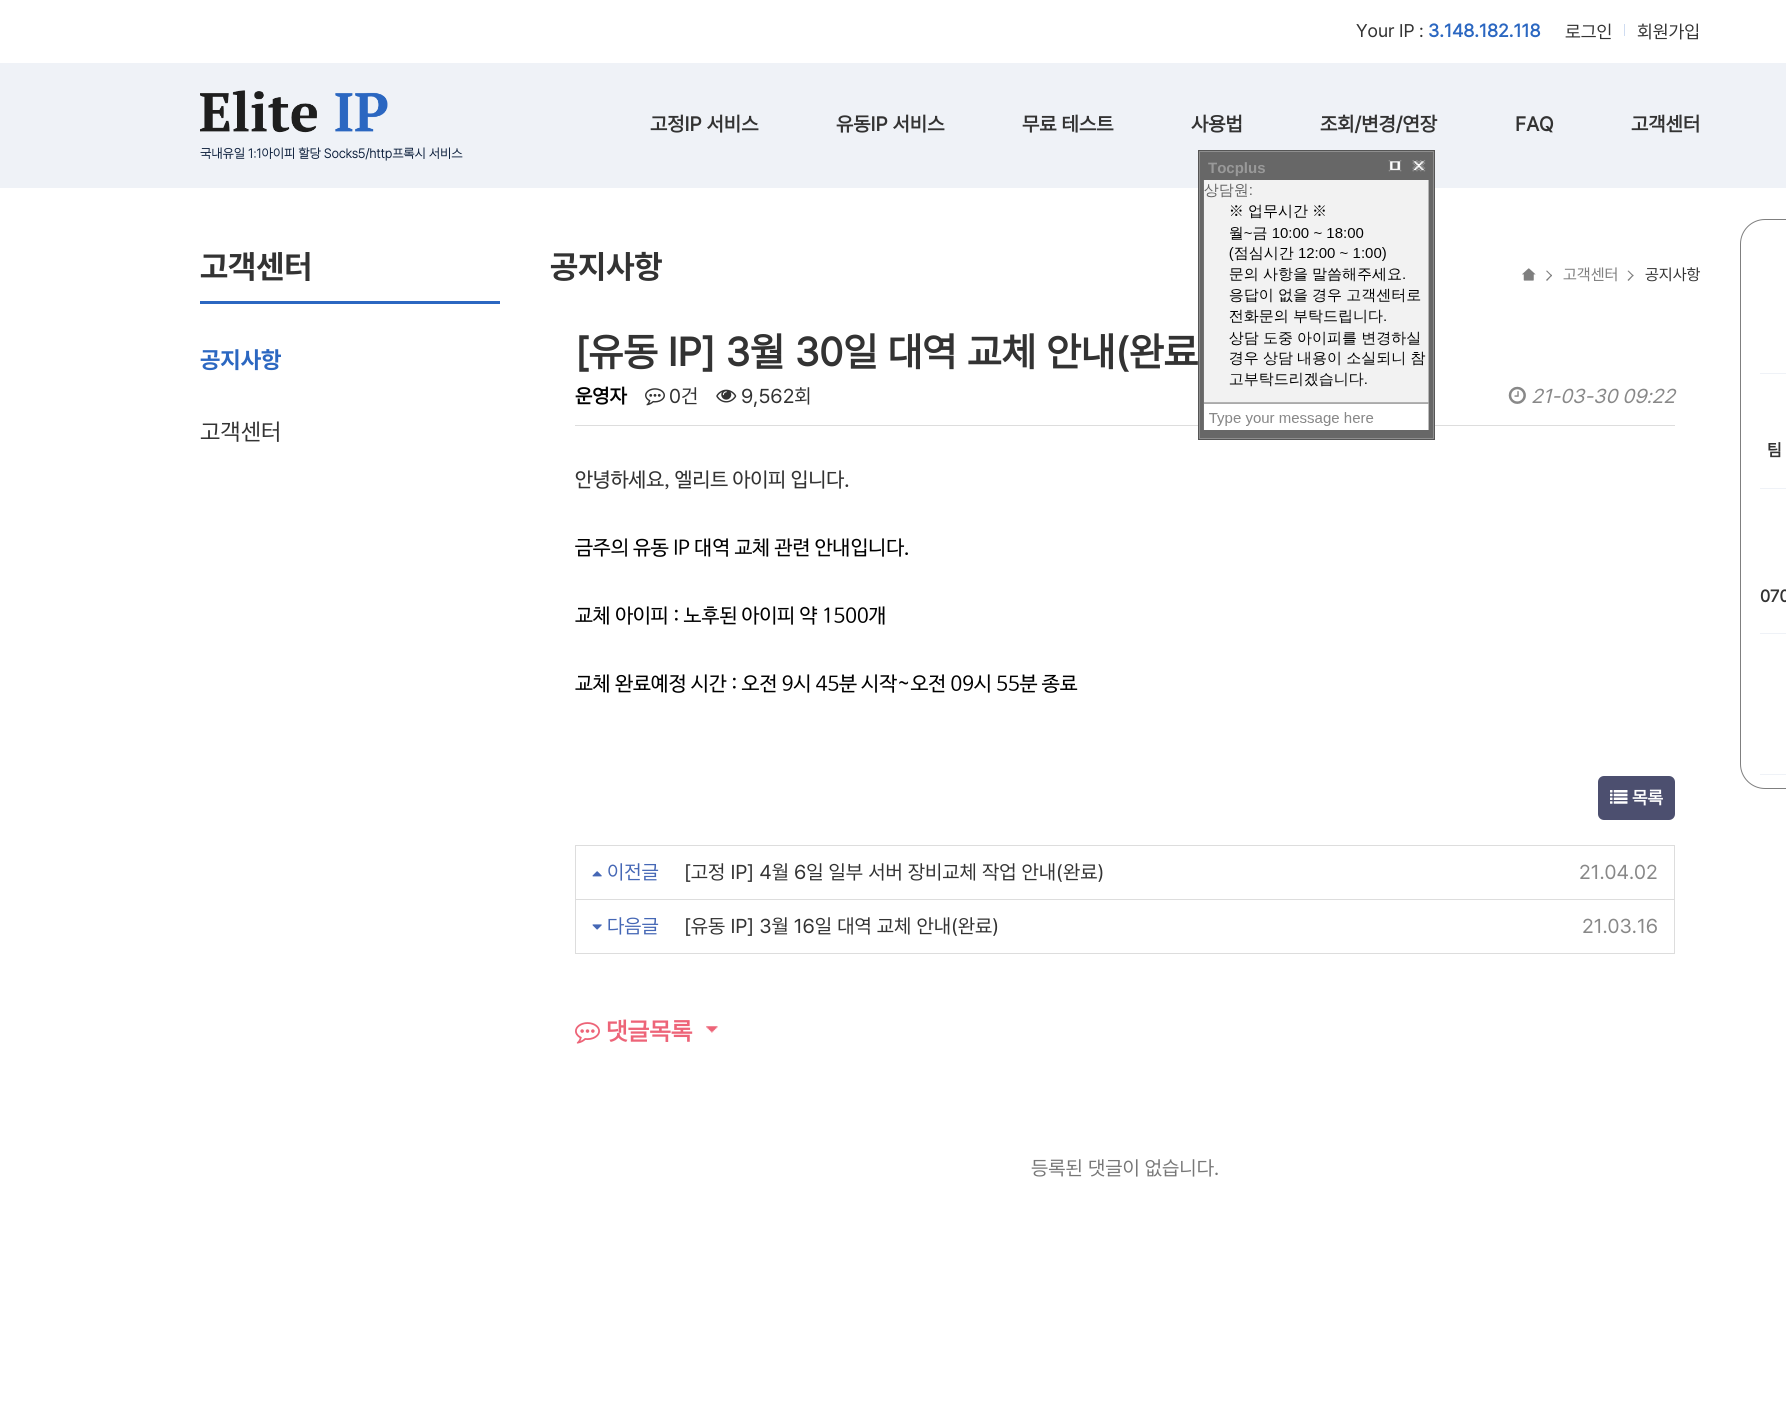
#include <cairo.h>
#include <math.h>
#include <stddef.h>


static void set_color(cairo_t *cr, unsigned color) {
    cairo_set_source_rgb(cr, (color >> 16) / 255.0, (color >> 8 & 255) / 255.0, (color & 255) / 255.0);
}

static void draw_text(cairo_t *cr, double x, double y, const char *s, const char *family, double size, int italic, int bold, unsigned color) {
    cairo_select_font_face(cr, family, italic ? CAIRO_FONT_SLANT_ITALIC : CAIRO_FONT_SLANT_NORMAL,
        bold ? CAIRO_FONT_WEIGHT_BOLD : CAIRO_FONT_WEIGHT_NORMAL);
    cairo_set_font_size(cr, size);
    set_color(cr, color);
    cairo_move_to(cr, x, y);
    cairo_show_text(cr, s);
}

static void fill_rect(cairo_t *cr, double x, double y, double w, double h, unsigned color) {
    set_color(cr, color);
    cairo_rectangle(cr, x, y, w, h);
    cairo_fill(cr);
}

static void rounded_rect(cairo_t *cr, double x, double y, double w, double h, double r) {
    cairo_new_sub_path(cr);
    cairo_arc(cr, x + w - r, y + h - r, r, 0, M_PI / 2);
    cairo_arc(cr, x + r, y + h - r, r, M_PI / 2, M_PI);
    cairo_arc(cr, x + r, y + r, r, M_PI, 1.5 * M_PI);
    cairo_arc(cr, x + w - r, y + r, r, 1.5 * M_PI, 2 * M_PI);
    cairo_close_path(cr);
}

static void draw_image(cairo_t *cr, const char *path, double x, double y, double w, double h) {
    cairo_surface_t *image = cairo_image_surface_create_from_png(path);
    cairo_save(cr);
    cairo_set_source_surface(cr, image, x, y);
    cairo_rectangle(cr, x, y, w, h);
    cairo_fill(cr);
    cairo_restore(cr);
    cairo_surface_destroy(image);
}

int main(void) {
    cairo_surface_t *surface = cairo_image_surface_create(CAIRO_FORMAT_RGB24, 1786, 1418);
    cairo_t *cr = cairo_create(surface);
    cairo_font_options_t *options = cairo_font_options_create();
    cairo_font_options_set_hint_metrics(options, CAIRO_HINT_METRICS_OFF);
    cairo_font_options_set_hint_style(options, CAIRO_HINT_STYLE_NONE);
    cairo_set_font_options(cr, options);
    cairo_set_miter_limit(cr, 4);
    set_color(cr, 0xFFFFFF);
    cairo_paint(cr);
    draw_text(cr, 1356, 37, "Your IP :", "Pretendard", 18.25, 0, 0, 0x333333);
    draw_text(cr, 1428, 37, "3.148.182.118", "Pretendard", 18.25, 0, 1, 0x2B67C1);
    draw_text(cr, 1565, 38, "로그인", "Pretendard", 18.25, 0, 0, 0x333333);
    fill_rect(cr, 1624, 24, 1, 12, 0xCFDCF1);
    draw_text(cr, 1637, 38, "회원가입", "Pretendard", 18.25, 0, 0, 0x333333);
    fill_rect(cr, 0, 63, 1786, 125, 0xEFF2F7);
    draw_text(cr, 650, 131, "고정IP 서비스", "Pretendard", 20, 0, 1, 0x333333);
    draw_text(cr, 836, 131, "유동IP 서비스", "Pretendard", 20, 0, 1, 0x333333);
    draw_text(cr, 1022, 131, "무료 테스트", "Pretendard", 20, 0, 1, 0x333333);
    draw_text(cr, 1191, 131, "사용법", "Pretendard", 20, 0, 1, 0x333333);
    draw_text(cr, 1320, 131, "조회/변경/연장", "Pretendard", 20, 0, 1, 0x333333);
    draw_text(cr, 1515, 131, "FAQ", "Pretendard", 20, 0, 1, 0x333333);
    draw_text(cr, 1631, 131, "고객센터", "Pretendard", 20, 0, 1, 0x333333);
    draw_image(cr, "assets/img1.png", 200, 90, 188, 43);
    draw_text(cr, 200, 158, "국내유일 1:1아이피 할당 Socks5/http프록시 서비스", "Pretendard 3", 13, 0, 1, 0x0D203D);
    rounded_rect(cr, 1740.5, 219.5, 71, 569, 24.5);
    set_color(cr, 0x7F7F7F);
    cairo_set_line_width(cr, 1);
    cairo_stroke(cr);
    fill_rect(cr, 1760, 373, 26, 1, 0xEFF2F7);
    fill_rect(cr, 1760, 488, 26, 1, 0xEFF2F7);
    draw_text(cr, 1767, 456, "팀", "Pretendard", 17, 0, 1, 0x333333);
    fill_rect(cr, 1760, 633, 26, 1, 0xEFF2F7);
    draw_text(cr, 1760, 602, "070", "Pretendard", 17, 0, 1, 0x333333);
    fill_rect(cr, 1760, 774, 26, 1, 0xEFF2F7);
    fill_rect(cr, 575, 425, 1100, 1, 0xDDDDDD);
    cairo_rectangle(cr, 1198.5, 150.5, 236, 289);
    set_color(cr, 0x555555);
    cairo_stroke(cr);
    set_color(cr, 0x676767);
    cairo_rectangle(cr, 1199.5, 151.5, 234, 287);
    cairo_fill_preserve(cr);
    set_color(cr, 0x8E8E8E);
    cairo_stroke(cr);
    draw_text(cr, 1208, 173, "Tocplus", "Liberation Sans", 15, 0, 1, 0x999999);
    draw_image(cr, "assets/img2.png", 1388, 160, 14, 12);
    draw_image(cr, "assets/img3.png", 1412, 160, 14, 12);
    draw_image(cr, "assets/img4.png", 1203, 180, 226, 250);
    fill_rect(cr, 200, 301, 300, 3, 0x2B67C1);
    draw_text(cr, 200, 278, "고객센터", "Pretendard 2", 32.5, 0, 1, 0x333333);
    draw_text(cr, 200, 368, "공지사항", "Pretendard 2", 23.5, 0, 1, 0x2B67C1);
    draw_text(cr, 200, 440, "고객센터", "Pretendard", 23.5, 0, 0, 0x333333);
    draw_text(cr, 550, 278, "공지사항", "Pretendard 2", 32.5, 0, 1, 0x333333);
    draw_image(cr, "assets/img5.png", 1522, 268, 14, 13);
    set_color(cr, 0x7B7B7B);
    cairo_new_path(cr);
    cairo_move_to(cr, 1547, 270.5);
    cairo_line_to(cr, 1552, 275.5);
    cairo_line_to(cr, 1551.5, 276.5);
    cairo_line_to(cr, 1546, 271);
    cairo_close_path(cr);
    cairo_fill(cr);
    cairo_new_path(cr);
    cairo_move_to(cr, 1551.5, 274.5);
    cairo_line_to(cr, 1552, 275.5);
    cairo_line_to(cr, 1547, 281);
    cairo_line_to(cr, 1546, 280);
    cairo_close_path(cr);
    cairo_fill(cr);
    draw_text(cr, 1563, 280, "고객센터", "Pretendard", 16, 0, 0, 0x7F7F7F);
    set_color(cr, 0x7B7B7B);
    cairo_new_path(cr);
    cairo_move_to(cr, 1628.5, 270.5);
    cairo_line_to(cr, 1633.5, 275.5);
    cairo_line_to(cr, 1633, 276.5);
    cairo_line_to(cr, 1627.5, 271);
    cairo_close_path(cr);
    cairo_fill(cr);
    cairo_new_path(cr);
    cairo_move_to(cr, 1633, 274.5);
    cairo_line_to(cr, 1633.5, 275.5);
    cairo_line_to(cr, 1628.5, 281);
    cairo_line_to(cr, 1627.5, 280);
    cairo_close_path(cr);
    cairo_fill(cr);
    draw_text(cr, 1645, 280, "공지사항", "Pretendard", 16, 0, 0, 0x333333);
    draw_text(cr, 575, 366, "[유동 IP] 3월 30일 대역 교체 안내(완료", "Pretendard", 40, 0, 1, 0x333333);
    draw_text(cr, 575, 403, "운영자", "Pretendard", 20, 0, 1, 0x000000);
    draw_image(cr, "assets/img6.png", 645, 388, 20, 18);
    draw_text(cr, 669, 403, "0건", "Pretendard", 20, 0, 0, 0x333333);
    draw_image(cr, "assets/img7.png", 716, 389, 21, 14);
    draw_text(cr, 741, 403, "9,562회", "Pretendard", 20, 0, 0, 0x333333);
    draw_image(cr, "assets/img8.png", 1508, 386, 18, 18);
    draw_text(cr, 1531, 403, "21-03-30 09:22", "Pretendard", 20, 1, 0, 0x888888);
    draw_text(cr, 575, 486, "안녕하세요, 엘리트 아이피 입니다.", "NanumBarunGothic", 20, 0, 0, 0x333333);
    draw_text(cr, 575, 554, "금주의 유동 IP 대역 교체 관련 안내입니다.", "NanumBarunGothic", 20, 0, 0, 0x000000);
    draw_text(cr, 575, 622, "교체 아이피 : 노후된 아이피 약 1500개", "NanumBarunGothic", 20, 0, 0, 0x000000);
    draw_text(cr, 575, 690, "교체 완료예정 시간 : 오전 9시 45분 시작~오전 09시 55분 종료", "NanumBarunGothic", 20, 0, 0, 0x000000);
    set_color(cr, 0x4C4F6F);
    rounded_rect(cr, 1598, 776, 77, 44, 6);
    cairo_fill(cr);
    draw_image(cr, "assets/img9.png", 1610, 790, 18, 14);
    draw_text(cr, 1632, 804, "목록", "Pretendard", 18, 0, 1, 0xFFFFFF);
    fill_rect(cr, 575, 953, 1100, 1, 0xDDDDDD);
    fill_rect(cr, 575, 845, 1100, 1, 0xDDDDDD);
    fill_rect(cr, 1674, 845, 1, 54, 0xDDDDDD);
    fill_rect(cr, 575, 845, 1, 54, 0xDDDDDD);
    draw_image(cr, "assets/img10.png", 592, 871, 10, 6);
    draw_text(cr, 607, 879, "이전글", "Pretendard", 20, 0, 0, 0x4567B5);
    draw_text(cr, 684, 879, "[고정 IP] 4월 6일 일부 서버 장비교체 작업 안내(완료)", "Pretendard", 20, 0, 0, 0x333333);
    draw_text(cr, 1579, 879, "21.04.02", "Pretendard", 20, 0, 0, 0x888888);
    fill_rect(cr, 575, 899, 1100, 1, 0xDDDDDD);
    fill_rect(cr, 1674, 899, 1, 54, 0xDDDDDD);
    fill_rect(cr, 575, 899, 1, 54, 0xDDDDDD);
    draw_image(cr, "assets/img11.png", 592, 924, 10, 6);
    draw_text(cr, 607, 933, "다음글", "Pretendard", 20, 0, 0, 0x4567B5);
    draw_text(cr, 684, 933, "[유동 IP] 3월 16일 대역 교체 안내(완료)", "Pretendard", 20, 0, 0, 0x333333);
    draw_text(cr, 1582, 933, "21.03.16", "Pretendard", 20, 0, 0, 0x888888);
    draw_image(cr, "assets/img12.png", 706, 1026, 12, 7);
    draw_image(cr, "assets/img13.png", 575, 1022, 25, 22);
    draw_text(cr, 606, 1040, "댓글목록", "Pretendard", 25, 0, 1, 0xED6478);
    draw_text(cr, 1031, 1175, "등록된 댓글이 없습니다.", "Pretendard", 20, 0, 0, 0x777777);
    cairo_surface_write_to_png(surface, "output.png");
    cairo_font_options_destroy(options);
    cairo_destroy(cr);
    cairo_surface_destroy(surface);
    return 0;
}
